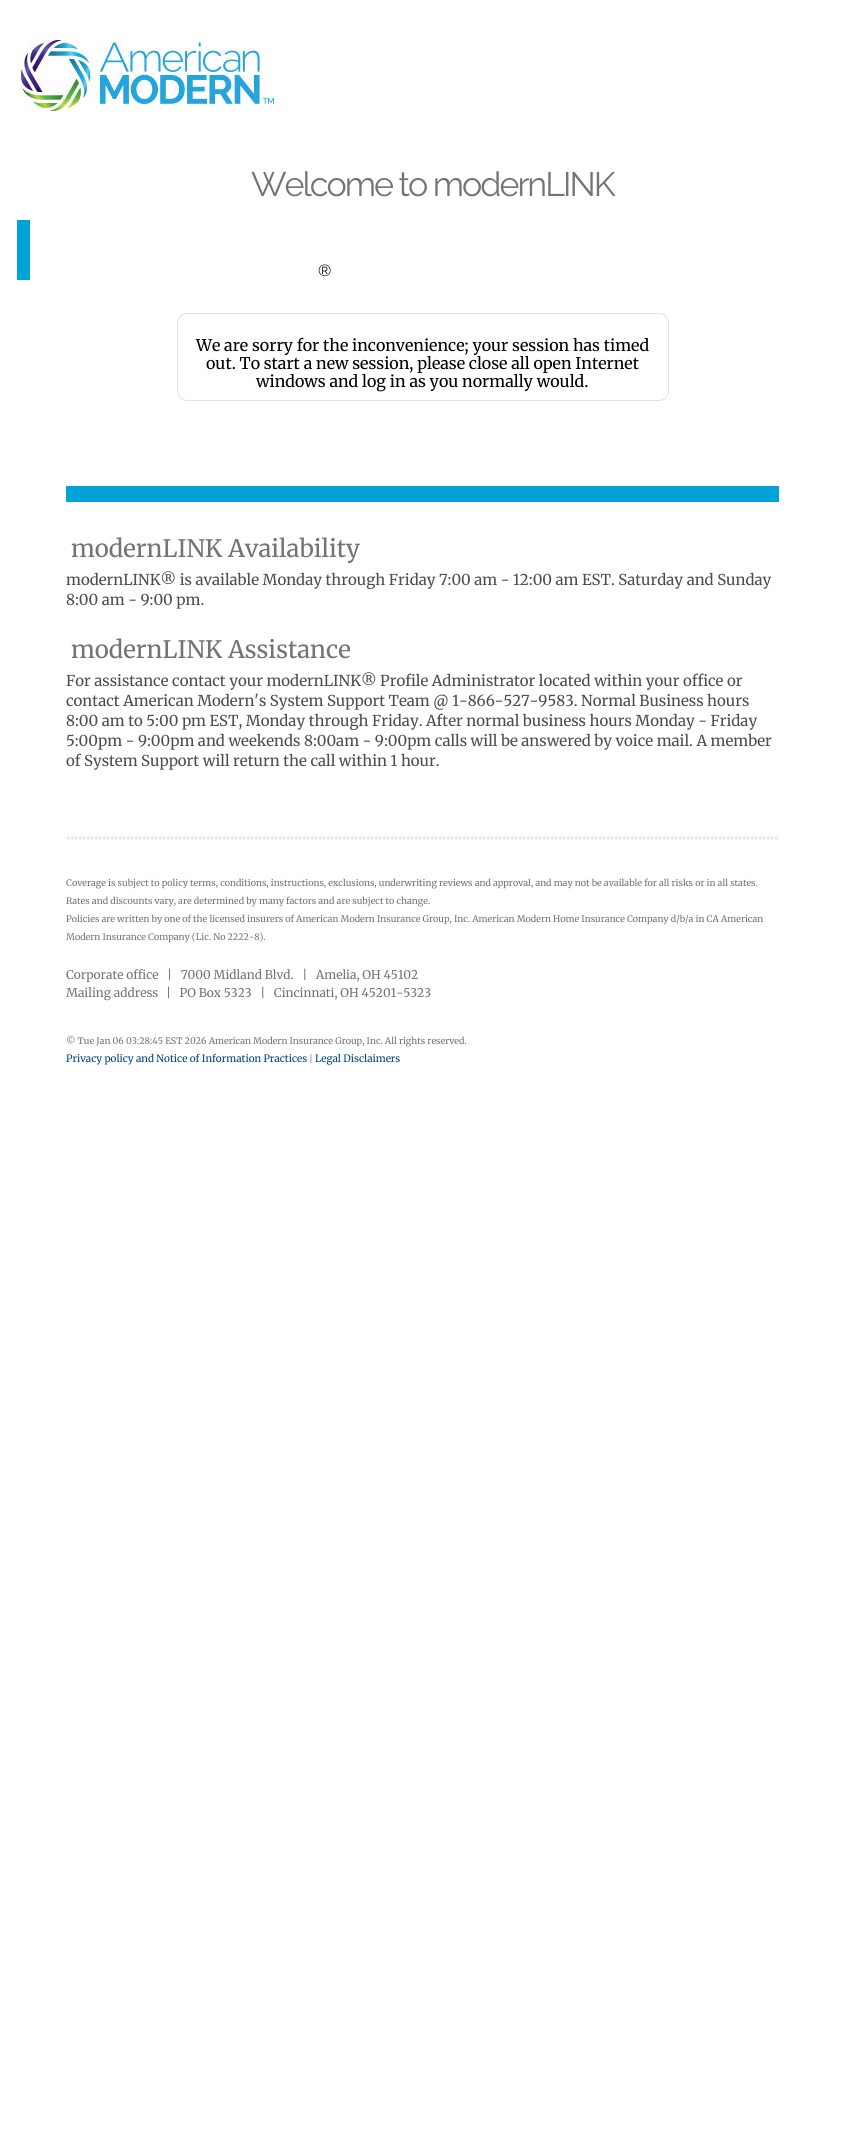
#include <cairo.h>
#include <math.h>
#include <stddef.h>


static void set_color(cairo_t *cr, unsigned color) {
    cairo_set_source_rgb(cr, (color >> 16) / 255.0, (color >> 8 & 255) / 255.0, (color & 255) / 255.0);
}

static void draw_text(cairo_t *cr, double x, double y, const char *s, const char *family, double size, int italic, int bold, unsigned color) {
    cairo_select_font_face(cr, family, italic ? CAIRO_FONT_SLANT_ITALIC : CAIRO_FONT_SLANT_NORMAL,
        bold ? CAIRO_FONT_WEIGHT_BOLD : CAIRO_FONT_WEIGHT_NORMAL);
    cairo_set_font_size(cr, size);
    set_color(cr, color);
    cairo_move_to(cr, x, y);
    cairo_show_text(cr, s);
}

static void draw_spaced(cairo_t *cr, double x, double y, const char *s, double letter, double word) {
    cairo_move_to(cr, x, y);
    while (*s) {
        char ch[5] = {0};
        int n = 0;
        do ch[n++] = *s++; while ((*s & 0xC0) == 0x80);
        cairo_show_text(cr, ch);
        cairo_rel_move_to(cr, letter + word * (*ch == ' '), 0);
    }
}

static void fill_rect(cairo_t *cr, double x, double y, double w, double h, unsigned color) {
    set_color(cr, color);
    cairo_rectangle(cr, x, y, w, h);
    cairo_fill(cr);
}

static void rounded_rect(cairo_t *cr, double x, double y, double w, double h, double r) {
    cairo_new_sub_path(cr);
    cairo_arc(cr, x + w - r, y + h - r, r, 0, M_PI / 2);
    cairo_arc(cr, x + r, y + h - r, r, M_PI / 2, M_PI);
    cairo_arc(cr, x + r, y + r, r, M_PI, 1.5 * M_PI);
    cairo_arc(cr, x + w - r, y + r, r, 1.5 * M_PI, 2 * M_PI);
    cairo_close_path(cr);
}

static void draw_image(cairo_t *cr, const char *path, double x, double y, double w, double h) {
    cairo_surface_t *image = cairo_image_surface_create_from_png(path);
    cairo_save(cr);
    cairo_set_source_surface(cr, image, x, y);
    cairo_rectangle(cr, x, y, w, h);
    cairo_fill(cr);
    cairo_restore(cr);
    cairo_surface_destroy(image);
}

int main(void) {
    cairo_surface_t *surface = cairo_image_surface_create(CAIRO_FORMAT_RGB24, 845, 2156);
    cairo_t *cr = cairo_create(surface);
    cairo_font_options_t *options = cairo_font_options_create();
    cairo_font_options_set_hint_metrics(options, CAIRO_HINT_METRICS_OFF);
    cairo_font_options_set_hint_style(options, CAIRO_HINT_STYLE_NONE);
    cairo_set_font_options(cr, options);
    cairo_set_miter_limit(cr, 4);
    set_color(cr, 0xFFFFFF);
    cairo_paint(cr);
    draw_image(cr, "assets/img1.png", 21, 40, 253, 71);
    fill_rect(cr, 17, 220, 13, 60, 0x00A2D7);
    cairo_select_font_face(cr, "Raleway Thin", CAIRO_FONT_SLANT_NORMAL, CAIRO_FONT_WEIGHT_NORMAL);
    cairo_set_font_size(cr, 34);
    set_color(cr, 0x747474);
    draw_spaced(cr, 251, 196, "Welcome to modernLINK", -2, 0);
    draw_text(cr, 318, 276, "®", "Raleway Thin", 16, 0, 0, 0x000000);
    rounded_rect(cr, 177.5, 313.5, 491, 87, 9.5);
    set_color(cr, 0xE1E1E1);
    cairo_set_line_width(cr, 1);
    cairo_stroke(cr);
    draw_text(cr, 196, 351, "We are sorry for the inconvenience; your session has timed", "Merriweather Light", 16, 0, 0, 0x000000);
    draw_text(cr, 206, 369, "out. To start a new session, please close all open Internet", "Merriweather Light", 16, 0, 0, 0x000000);
    draw_text(cr, 256, 387, "windows and log in as you normally would.", "Merriweather Light", 16, 0, 0, 0x000000);
    fill_rect(cr, 66, 486, 713, 16, 0x01A2D8);
    draw_text(cr, 71, 557, "modernLINK Availability", "Merriweather Light", 24, 0, 0, 0x747474);
    draw_text(cr, 66, 585, "modernLINK® is available Monday through Friday 7:00 am - 12:00 am EST. Saturday and Sunday", "Merriweather Light", 15, 0, 0, 0x4D4D4D);
    draw_text(cr, 66, 605, "8:00 am - 9:00 pm.", "Merriweather Light", 15, 0, 0, 0x4D4D4D);
    draw_text(cr, 71, 658, "modernLINK Assistance", "Merriweather Light", 24, 0, 0, 0x747474);
    draw_text(cr, 66, 686, "For assistance contact your modernLINK® Profile Administrator located within your office or", "Merriweather Light", 15, 0, 0, 0x4D4D4D);
    draw_text(cr, 66, 706, "contact American Modern's System Support Team @ 1-866-527-9583. Normal Business hours", "Merriweather Light", 15, 0, 0, 0x4D4D4D);
    draw_text(cr, 66, 726, "8:00 am to 5:00 pm EST, Monday through Friday. After normal business hours Monday - Friday", "Merriweather Light", 15, 0, 0, 0x4D4D4D);
    draw_text(cr, 66, 746, "5:00pm - 9:00pm and weekends 8:00am - 9:00pm calls will be answered by voice mail. A member", "Merriweather Light", 15, 0, 0, 0x4D4D4D);
    draw_text(cr, 66, 766, "of System Support will return the call within 1 hour.", "Merriweather Light", 15, 0, 0, 0x4D4D4D);
    draw_image(cr, "assets/img2.png", 66, 836, 713, 4);
    draw_text(cr, 66, 886, "Coverage is subject to policy terms, conditions, instructions, exclusions, underwriting reviews and approval, and may not be available for all risks or in all states.", "Merriweather Light", 9, 0, 0, 0x747474);
    draw_text(cr, 66, 904, "Rates and discounts vary, are determined by many factors and are subject to change.", "Merriweather Light", 9, 0, 0, 0x747474);
    draw_text(cr, 66, 922, "Policies are written by one of the licensed insurers of American Modern Insurance Group, Inc. American Modern Home Insurance Company d/b/a in CA American", "Merriweather Light", 9, 0, 0, 0x747474);
    draw_text(cr, 66, 940, "Modern Insurance Company (Lic. No 2222-8).", "Merriweather Light", 9, 0, 0, 0x747474);
    draw_text(cr, 66, 979, "Corporate office   |   7000 Midland Blvd.   |   Amelia, OH 45102", "Merriweather Light", 12, 0, 0, 0x747474);
    draw_text(cr, 66, 997, "Mailing address", "Merriweather Light", 12, 0, 0, 0x747474);
    draw_text(cr, 166, 997, "|   PO Box 5323   |   Cincinnati, OH 45201-5323", "Merriweather Light", 12, 0, 0, 0x747474);
    draw_text(cr, 66, 1044, "© Tue Jan 06 03:28:45 EST 2026 American Modern Insurance Group, Inc. All rights reserved.", "Merriweather Light", 9, 0, 0, 0x747474);
    draw_text(cr, 66, 1062, "Privacy policy and Notice of Information Practices", "Merriweather Light", 10, 0, 0, 0x00447E);
    draw_text(cr, 309, 1062, "|", "Merriweather Light", 9, 0, 0, 0x747474);
    draw_text(cr, 315, 1062, "Legal Disclaimers", "Merriweather Light", 10, 0, 0, 0x00447E);
    cairo_surface_write_to_png(surface, "output.png");
    cairo_font_options_destroy(options);
    cairo_destroy(cr);
    cairo_surface_destroy(surface);
    return 0;
}
